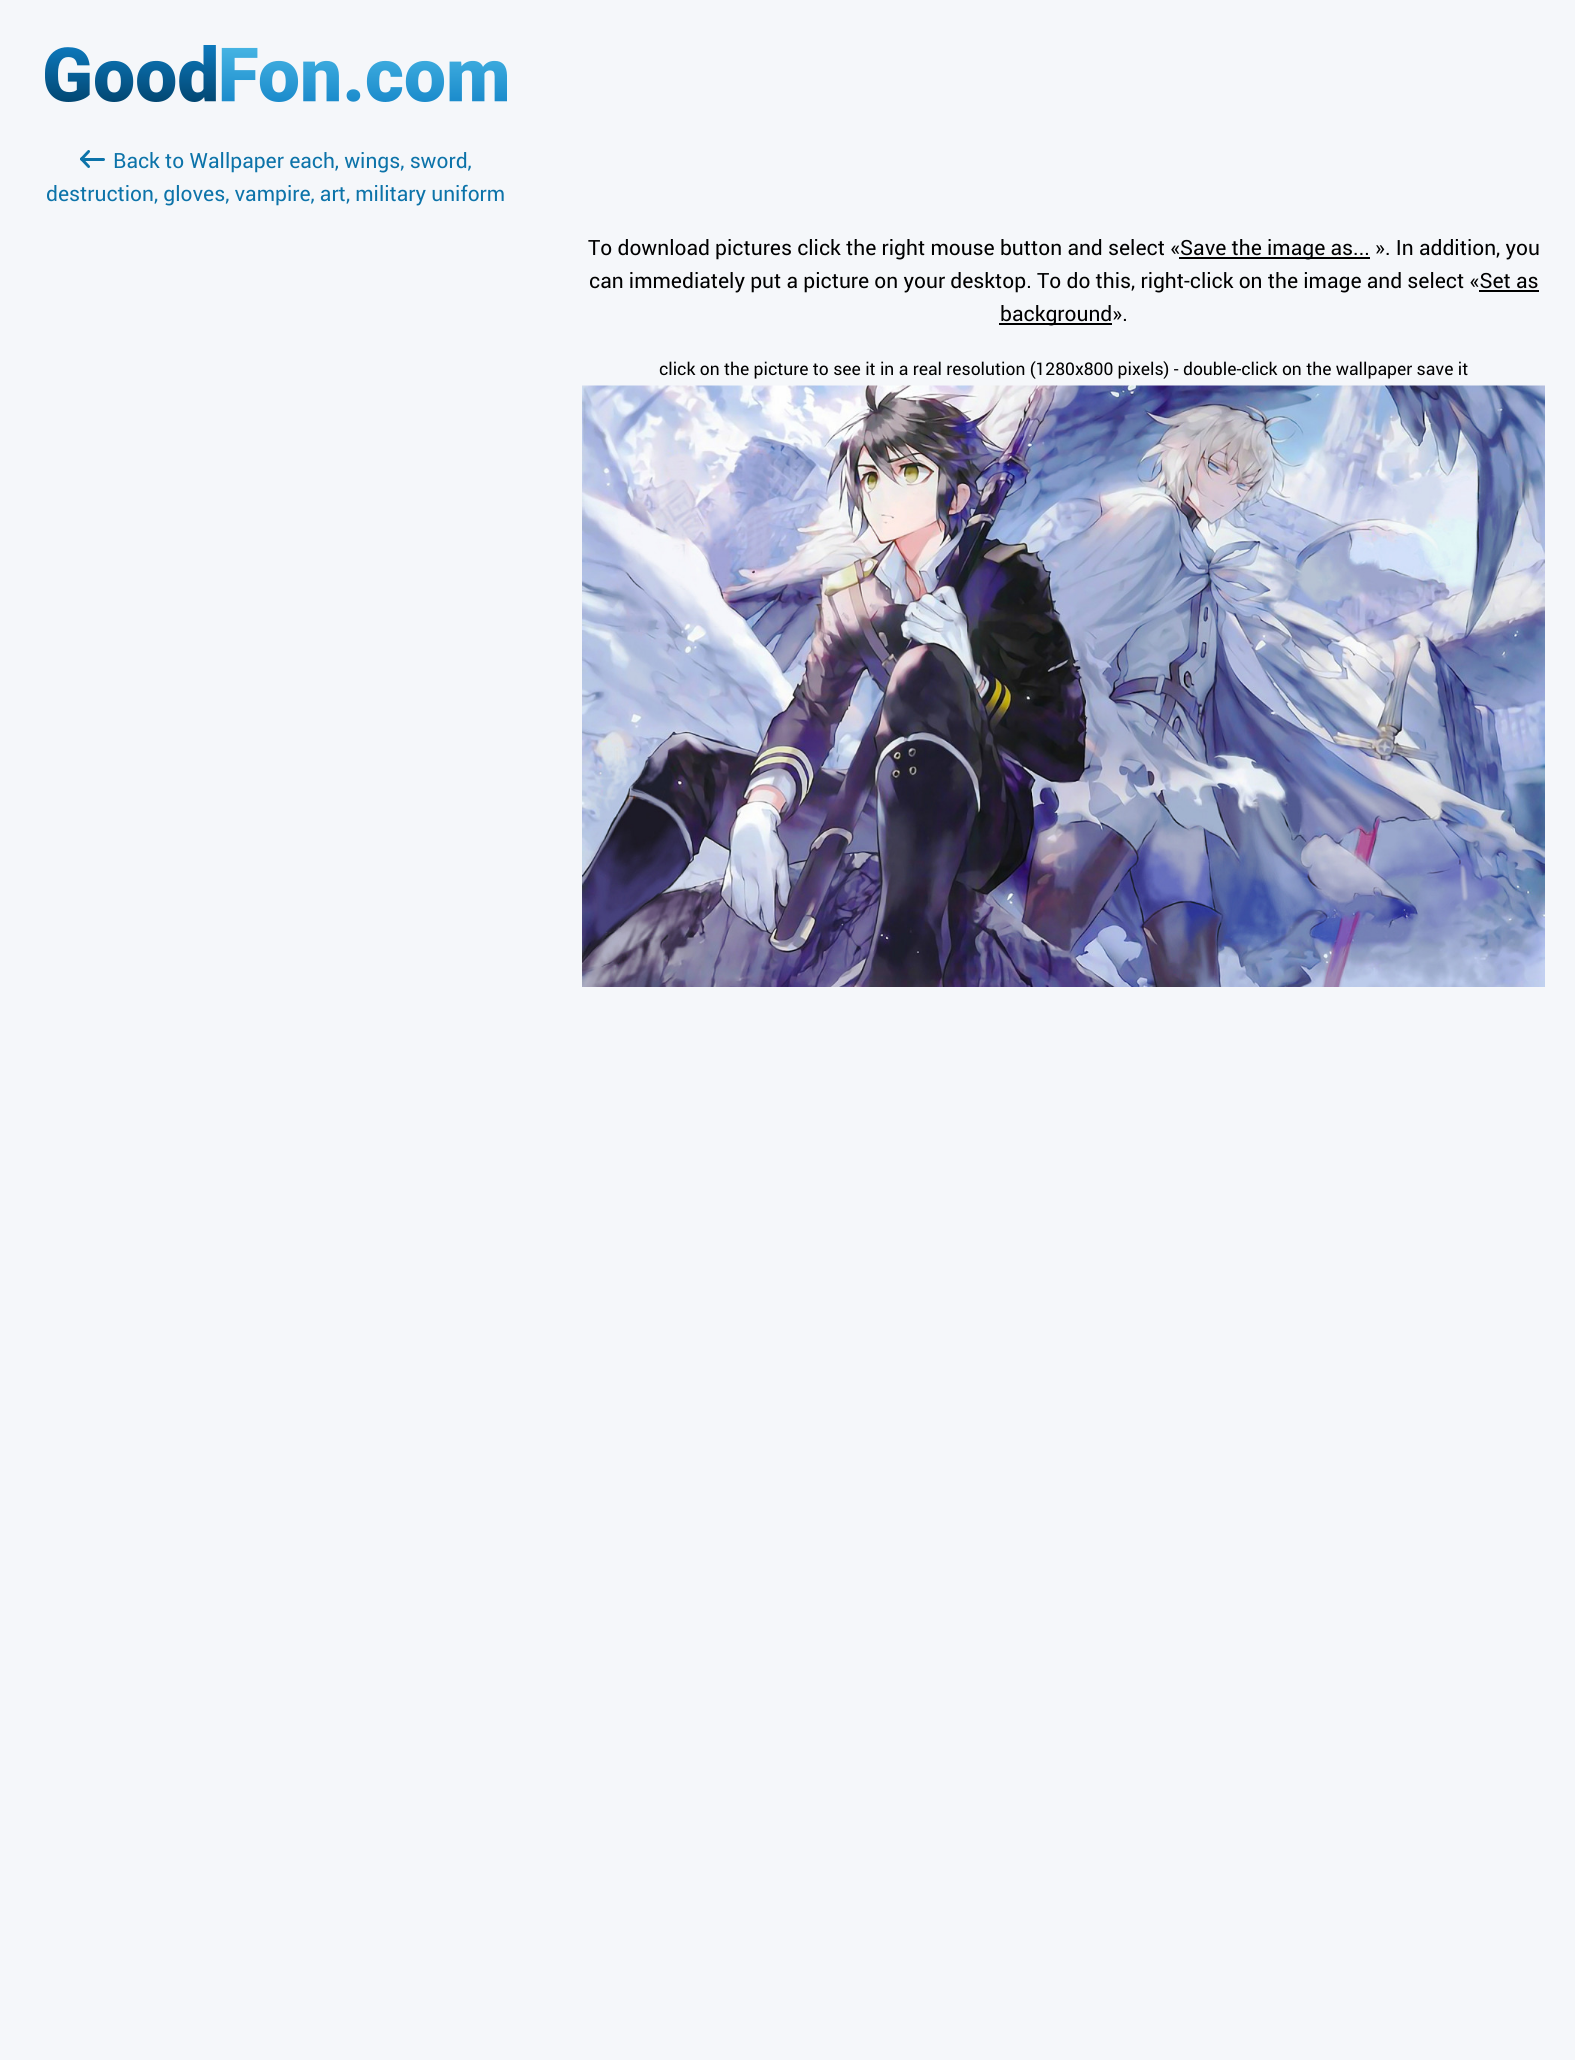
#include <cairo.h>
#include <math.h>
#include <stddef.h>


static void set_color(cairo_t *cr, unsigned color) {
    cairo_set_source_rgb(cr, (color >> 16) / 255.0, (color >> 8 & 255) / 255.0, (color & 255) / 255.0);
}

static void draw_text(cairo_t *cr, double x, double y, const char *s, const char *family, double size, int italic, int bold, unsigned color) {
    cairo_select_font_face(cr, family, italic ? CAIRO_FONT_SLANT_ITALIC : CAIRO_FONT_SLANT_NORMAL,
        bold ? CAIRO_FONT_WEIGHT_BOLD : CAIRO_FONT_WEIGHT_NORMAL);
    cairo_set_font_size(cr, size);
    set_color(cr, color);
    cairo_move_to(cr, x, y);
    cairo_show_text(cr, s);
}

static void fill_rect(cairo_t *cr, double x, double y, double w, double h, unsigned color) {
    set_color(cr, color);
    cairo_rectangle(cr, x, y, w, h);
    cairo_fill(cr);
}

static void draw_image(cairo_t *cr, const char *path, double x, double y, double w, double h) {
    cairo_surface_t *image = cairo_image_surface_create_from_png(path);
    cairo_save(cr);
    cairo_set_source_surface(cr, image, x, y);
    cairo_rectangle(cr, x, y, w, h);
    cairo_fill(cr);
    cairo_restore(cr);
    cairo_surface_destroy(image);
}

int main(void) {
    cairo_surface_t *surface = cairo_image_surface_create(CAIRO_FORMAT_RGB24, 1575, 2060);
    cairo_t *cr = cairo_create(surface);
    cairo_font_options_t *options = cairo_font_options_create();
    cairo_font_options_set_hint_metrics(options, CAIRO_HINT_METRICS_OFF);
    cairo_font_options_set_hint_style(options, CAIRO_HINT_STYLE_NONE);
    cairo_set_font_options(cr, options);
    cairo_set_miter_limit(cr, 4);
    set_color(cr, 0xF5F7FA);
    cairo_paint(cr);
    draw_image(cr, "assets/img1.png", 45, 45, 462, 57);
    draw_image(cr, "assets/img2.png", 80, 150, 25, 18);
    draw_text(cr, 113, 168, "Back to Wallpaper each, wings, sword,", "Roboto", 21, 0, 0, 0x0C73A9);
    draw_text(cr, 46, 201, "destruction, gloves, vampire, art, military uniform", "Roboto", 21, 0, 0, 0x0C73A9);
    draw_text(cr, 588, 255, "To download pictures click the right mouse button and select «", "Roboto", 21, 0, 0, 0x000000);
    fill_rect(cr, 1179, 257, 191, 2, 0x000000);
    draw_text(cr, 1180, 255, "Save the image as... ». In addition, you", "Roboto", 21, 0, 0, 0x000000);
    draw_text(cr, 589, 288, "can immediately put a picture on your desktop. To do this, right-click on the image and select «Set as", "Roboto", 21, 0, 0, 0x000000);
    fill_rect(cr, 999, 323, 113, 2, 0x000000);
    draw_text(cr, 1000, 321, "background».", "Roboto", 21, 0, 0, 0x000000);
    fill_rect(cr, 1479, 290, 60, 2, 0x000000);
    draw_text(cr, 659, 375, "click on the picture to see it in a real resolution (1280x800 pixels) - double-click on the wallpaper save it", "Roboto", 17.5, 0, 0, 0x000000);
    draw_image(cr, "assets/img3.png", 582, 385, 963, 602);
    cairo_surface_write_to_png(surface, "output.png");
    cairo_font_options_destroy(options);
    cairo_destroy(cr);
    cairo_surface_destroy(surface);
    return 0;
}
